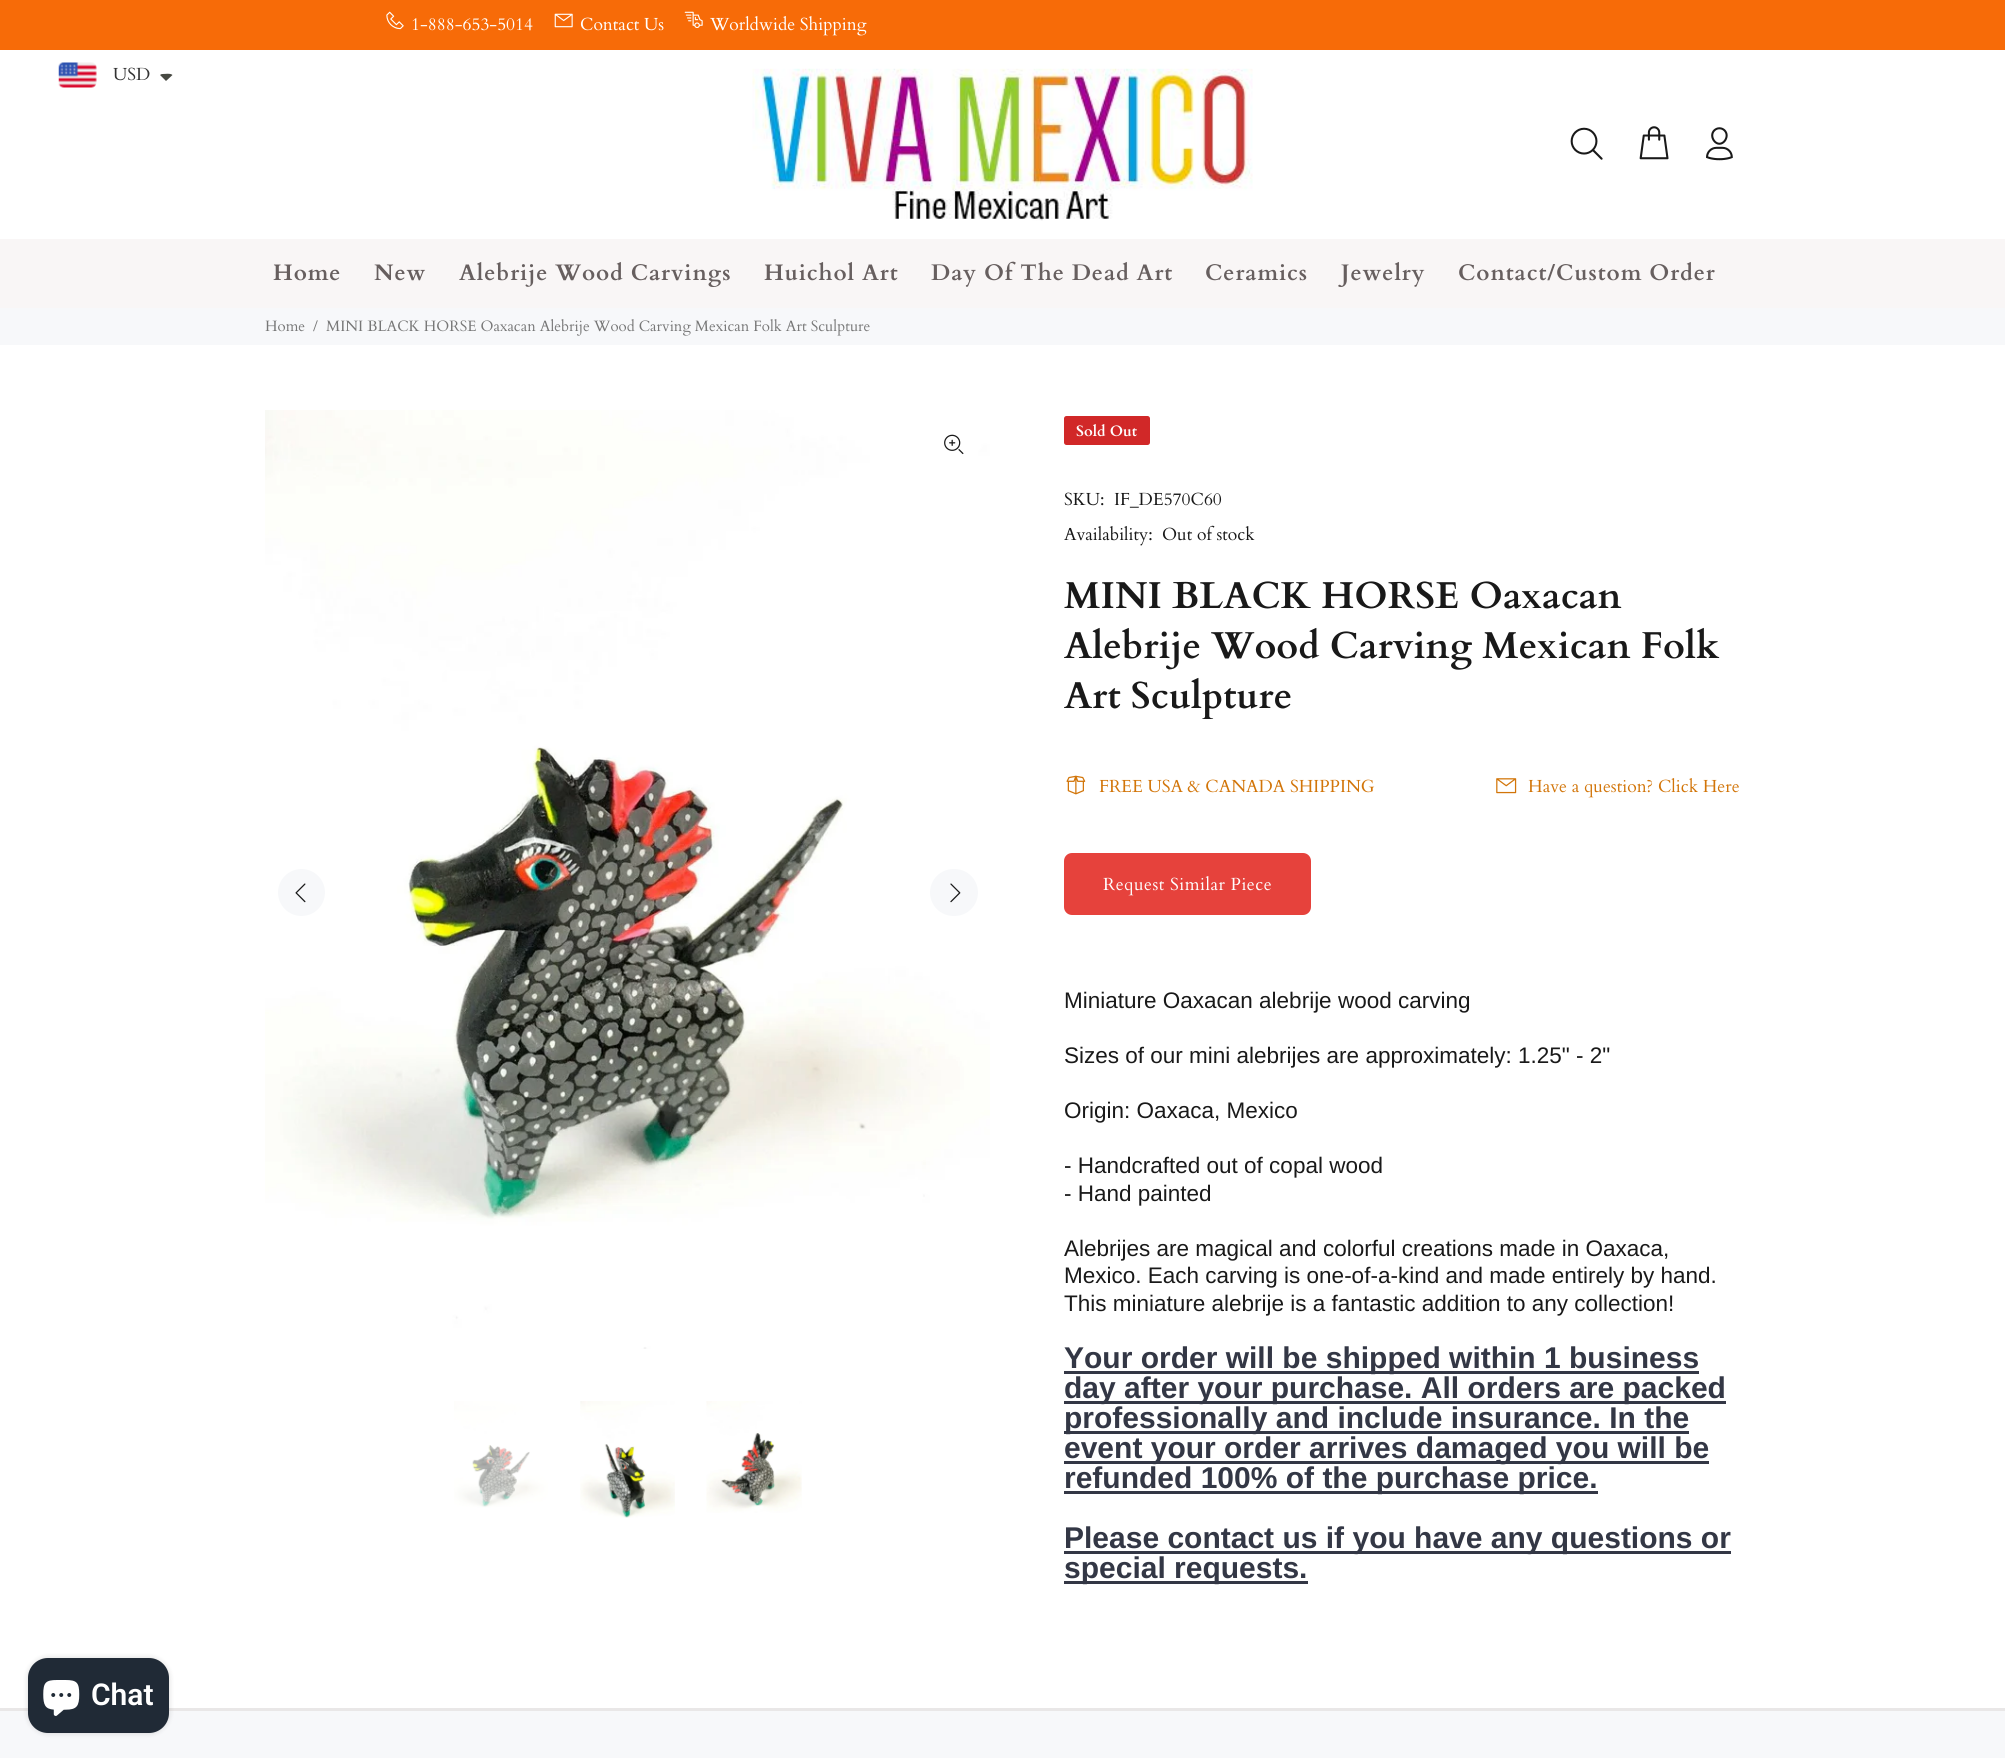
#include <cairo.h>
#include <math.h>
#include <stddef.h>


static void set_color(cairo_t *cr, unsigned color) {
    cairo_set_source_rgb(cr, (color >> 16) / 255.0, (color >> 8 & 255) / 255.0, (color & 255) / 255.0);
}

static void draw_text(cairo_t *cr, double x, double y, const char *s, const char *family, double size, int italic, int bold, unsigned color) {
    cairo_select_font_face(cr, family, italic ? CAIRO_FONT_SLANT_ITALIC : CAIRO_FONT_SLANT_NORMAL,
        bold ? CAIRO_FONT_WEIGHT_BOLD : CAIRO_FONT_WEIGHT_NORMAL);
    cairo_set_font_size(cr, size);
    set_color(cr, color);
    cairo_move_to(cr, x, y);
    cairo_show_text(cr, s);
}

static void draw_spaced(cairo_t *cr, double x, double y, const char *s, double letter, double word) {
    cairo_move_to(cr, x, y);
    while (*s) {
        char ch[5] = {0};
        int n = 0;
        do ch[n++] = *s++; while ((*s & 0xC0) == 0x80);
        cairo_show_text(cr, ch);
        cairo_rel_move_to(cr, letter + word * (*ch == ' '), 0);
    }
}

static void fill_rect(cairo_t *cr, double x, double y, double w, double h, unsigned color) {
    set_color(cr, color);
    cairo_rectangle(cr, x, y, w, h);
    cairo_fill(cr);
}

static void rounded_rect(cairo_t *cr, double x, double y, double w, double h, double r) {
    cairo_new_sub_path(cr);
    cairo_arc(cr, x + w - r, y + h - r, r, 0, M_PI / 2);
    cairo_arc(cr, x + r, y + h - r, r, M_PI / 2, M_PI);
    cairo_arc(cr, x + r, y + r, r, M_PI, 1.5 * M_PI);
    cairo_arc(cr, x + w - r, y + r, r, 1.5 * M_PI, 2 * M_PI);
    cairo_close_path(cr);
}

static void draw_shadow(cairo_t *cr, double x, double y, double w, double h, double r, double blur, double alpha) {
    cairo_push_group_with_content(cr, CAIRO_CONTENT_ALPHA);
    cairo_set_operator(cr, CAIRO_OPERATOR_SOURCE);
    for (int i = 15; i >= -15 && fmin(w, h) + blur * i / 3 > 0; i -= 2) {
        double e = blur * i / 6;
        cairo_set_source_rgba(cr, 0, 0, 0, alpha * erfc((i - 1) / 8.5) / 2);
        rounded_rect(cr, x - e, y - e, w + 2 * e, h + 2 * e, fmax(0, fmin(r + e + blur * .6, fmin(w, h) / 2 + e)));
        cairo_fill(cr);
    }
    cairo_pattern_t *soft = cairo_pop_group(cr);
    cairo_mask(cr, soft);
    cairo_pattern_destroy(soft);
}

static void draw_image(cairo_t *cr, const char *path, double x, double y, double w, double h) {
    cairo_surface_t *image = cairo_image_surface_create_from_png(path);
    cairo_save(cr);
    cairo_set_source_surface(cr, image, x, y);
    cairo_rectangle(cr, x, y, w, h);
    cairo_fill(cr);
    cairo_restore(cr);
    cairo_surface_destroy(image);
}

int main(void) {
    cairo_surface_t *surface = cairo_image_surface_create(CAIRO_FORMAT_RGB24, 2005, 1758);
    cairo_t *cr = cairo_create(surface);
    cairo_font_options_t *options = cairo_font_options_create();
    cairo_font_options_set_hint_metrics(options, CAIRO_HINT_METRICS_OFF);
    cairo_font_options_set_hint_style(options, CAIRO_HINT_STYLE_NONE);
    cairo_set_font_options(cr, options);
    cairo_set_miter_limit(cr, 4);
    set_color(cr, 0xFFFFFF);
    cairo_paint(cr);
    draw_image(cr, "assets/img1.png", 58, 62, 39, 26);
    draw_text(cr, 113, 80, "USD", "Cardo", 17.5, 0, 0, 0x333333);
    set_color(cr, 0x474942);
    cairo_new_path(cr);
    cairo_move_to(cr, 162.5, 74);
    cairo_curve_to(cr, 165, 74, 170.5, 73, 172.5, 75);
    cairo_line_to(cr, 166, 81);
    cairo_line_to(cr, 160, 75);
    cairo_curve_to(cr, 160.5, 74.5, 161.5, 74, 162.5, 74);
    cairo_close_path(cr);
    cairo_fill(cr);
    fill_rect(cr, 0, 0, 2005, 50, 0xF76B08);
    draw_image(cr, "assets/img2.png", 386, 11, 18, 19);
    draw_text(cr, 411, 30, "1-888-653-5014", "Cardo", 17.5, 0, 0, 0xFFFFFF);
    draw_image(cr, "assets/img3.png", 554, 13, 19, 15);
    draw_text(cr, 580, 30, "Contact Us", "Cardo", 17.5, 0, 0, 0xFFFFFF);
    draw_image(cr, "assets/img4.png", 684, 11, 19, 17);
    draw_text(cr, 710, 30, "Worldwide Shipping", "Cardo", 17.5, 0, 0, 0xFFFFFF);
    draw_image(cr, "assets/img5.png", 752, 68, 501, 153);
    draw_image(cr, "assets/img6.png", 1570, 127, 33, 33);
    draw_image(cr, "assets/img7.png", 1639, 126, 30, 34);
    draw_image(cr, "assets/img8.png", 1706, 127, 27, 34);
    fill_rect(cr, 0, 239, 2005, 69, 0xF9F6F6);
    cairo_select_font_face(cr, "Cardo", CAIRO_FONT_SLANT_NORMAL, CAIRO_FONT_WEIGHT_BOLD);
    cairo_set_font_size(cr, 22.5);
    set_color(cr, 0x675F5F);
    draw_spaced(cr, 273, 280, "Home", 0.9, 0);
    draw_spaced(cr, 374, 280, "New", 0.9, 0);
    draw_spaced(cr, 459, 280, "Alebrije Wood Carvings", 0.9, 0);
    draw_spaced(cr, 764, 280, "Huichol Art", 0.9, 0);
    draw_spaced(cr, 931, 280, "Day Of The Dead Art", 0.9, 0);
    draw_spaced(cr, 1205, 280, "Ceramics", 0.9, 0);
    draw_spaced(cr, 1341, 280, "Jewelry", 0.9, 0);
    draw_spaced(cr, 1458, 280, "Contact/Custom Order", 0.9, 0);
    fill_rect(cr, 0, 308, 2005, 37, 0xF7F8FA);
    draw_text(cr, 265, 331, "Home", "Cardo", 15, 0, 0, 0x777777);
    draw_text(cr, 313, 331, "/", "Cardo", 15, 0, 0, 0x777777);
    draw_text(cr, 326, 331, "MINI BLACK HORSE Oaxacan Alebrije Wood Carving Mexican Folk Art Sculpture", "Cardo", 15, 0, 0, 0x777777);
    draw_image(cr, "assets/img9.png", 265, 410, 725, 939);
    draw_image(cr, "assets/img10.png", 944, 434, 20, 21);
    set_color(cr, 0xF7F8FA);
    cairo_arc(cr, 301.5, 892.5, 23.5, 0, 2 * M_PI);
    cairo_fill(cr);
    draw_image(cr, "assets/img11.png", 295, 883, 11, 20);
    rounded_rect(cr, 930, 869, 48, 47, 23.5);
    cairo_fill(cr);
    draw_image(cr, "assets/img12.png", 950, 883, 11, 20);
    draw_image(cr, "assets/img13.png", 454, 1401, 94, 107);
    draw_image(cr, "assets/img14.png", 580, 1401, 95, 117);
    draw_image(cr, "assets/img15.png", 706, 1401, 96, 112);
    set_color(cr, 0xD12828);
    rounded_rect(cr, 1064, 416, 86, 29, 2.5);
    cairo_fill(cr);
    draw_text(cr, 1076, 436, "Sold Out", "Cardo", 15, 0, 1, 0xFFFFFF);
    draw_text(cr, 1064, 505, "SKU:", "Cardo", 17.5, 0, 0, 0x191919);
    draw_text(cr, 1114, 505, "IF_DE570C60", "Cardo", 17.5, 0, 0, 0x191919);
    draw_text(cr, 1064, 540, "Availability:", "Cardo", 17.5, 0, 0, 0x191919);
    draw_text(cr, 1162, 540, "Out of stock", "Cardo", 17.5, 0, 0, 0x191919);
    cairo_select_font_face(cr, "Cardo", CAIRO_FONT_SLANT_NORMAL, CAIRO_FONT_WEIGHT_BOLD);
    cairo_set_font_size(cr, 37.5);
    draw_spaced(cr, 1064, 608, "MINI BLACK HORSE Oaxacan", 0.05, 0);
    draw_spaced(cr, 1064, 658, "Alebrije Wood Carving Mexican Folk", 0.05, 0);
    draw_spaced(cr, 1064, 708, "Art Sculpture", 0.05, 0);
    draw_image(cr, "assets/img16.png", 1066, 775, 20, 20);
    draw_text(cr, 1099, 792, "FREE USA & CANADA SHIPPING", "Cardo", 17.5, 0, 0, 0xD27509);
    draw_image(cr, "assets/img17.png", 1496, 778, 21, 16);
    draw_text(cr, 1528, 792, "Have a question? Click Here", "Cardo", 17.5, 0, 0, 0xD27509);
    set_color(cr, 0xE6423C);
    rounded_rect(cr, 1064, 853, 247, 62, 8);
    cairo_fill(cr);
    set_color(cr, 0xFFFFFF);
    draw_spaced(cr, 1103, 890, "Request Similar Piece", 0.5, 0);
    draw_text(cr, 1064, 1008, "Miniature Oaxacan alebrije wood carving", "Liberation Sans", 22.5, 0, 0, 0x191919);
    draw_text(cr, 1064, 1063, "Sizes of our mini alebrijes are approximately: 1.25\" - 2\"", "Liberation Sans", 22.5, 0, 0, 0x191919);
    draw_text(cr, 1064, 1118, "Origin: Oaxaca, Mexico", "Liberation Sans", 22.5, 0, 0, 0x191919);
    draw_text(cr, 1064, 1173, "- Handcrafted out of copal wood", "Liberation Sans", 22.5, 0, 0, 0x191919);
    draw_text(cr, 1064, 1201, "- Hand painted", "Liberation Sans", 22.5, 0, 0, 0x191919);
    draw_text(cr, 1064, 1256, "Alebrijes are magical and colorful creations made in Oaxaca,", "Liberation Sans", 22.5, 0, 0, 0x191919);
    draw_text(cr, 1064, 1283, "Mexico. Each carving is one-of-a-kind and made entirely by hand.", "Liberation Sans", 22.5, 0, 0, 0x191919);
    draw_text(cr, 1064, 1311, "This miniature alebrije is a fantastic addition to any collection!", "Liberation Sans", 22.5, 0, 0, 0x191919);
    fill_rect(cr, 1064, 1371, 635, 3, 0x333745);
    draw_text(cr, 1064, 1368, "Your order will be shipped within 1 business", "Liberation Sans", 30, 0, 1, 0x333745);
    fill_rect(cr, 1064, 1401, 662, 3, 0x333745);
    draw_text(cr, 1064, 1398, "day after your purchase. All orders are packed", "Liberation Sans", 30, 0, 1, 0x333745);
    fill_rect(cr, 1064, 1431, 625, 3, 0x333745);
    draw_text(cr, 1064, 1428, "professionally and include insurance. In the", "Liberation Sans", 30, 0, 1, 0x333745);
    fill_rect(cr, 1064, 1461, 645, 3, 0x333745);
    draw_text(cr, 1064, 1458, "event your order arrives damaged you will be", "Liberation Sans", 30, 0, 1, 0x333745);
    fill_rect(cr, 1064, 1491, 534, 3, 0x333745);
    draw_text(cr, 1064, 1488, "refunded 100% of the purchase price.", "Liberation Sans", 30, 0, 1, 0x333745);
    fill_rect(cr, 1064, 1551, 667, 3, 0x333745);
    draw_text(cr, 1064, 1548, "Please contact us if you have any questions or", "Liberation Sans", 30, 0, 1, 0x333745);
    fill_rect(cr, 1064, 1581, 244, 3, 0x333745);
    draw_text(cr, 1064, 1578, "special requests.", "Liberation Sans", 30, 0, 1, 0x333745);
    fill_rect(cr, 0, 1711, 2005, 47, 0xF7F8FA);
    fill_rect(cr, 0, 1708, 2005, 3, 0xE9E7E7);
    set_color(cr, 0x000000);
    draw_shadow(cr, 28, 1658, 141, 75, 20, 3, 0.15);
    set_color(cr, 0x202A36);
    rounded_rect(cr, 28, 1658, 141, 75, 20);
    cairo_fill(cr);
    draw_image(cr, "assets/img18.png", 43, 1680, 37, 36);
    draw_text(cr, 91, 1705, "Chat", "Roboto SemiBold", 30, 0, 0, 0xFFFFFF);
    cairo_surface_write_to_png(surface, "output.png");
    cairo_font_options_destroy(options);
    cairo_destroy(cr);
    cairo_surface_destroy(surface);
    return 0;
}
